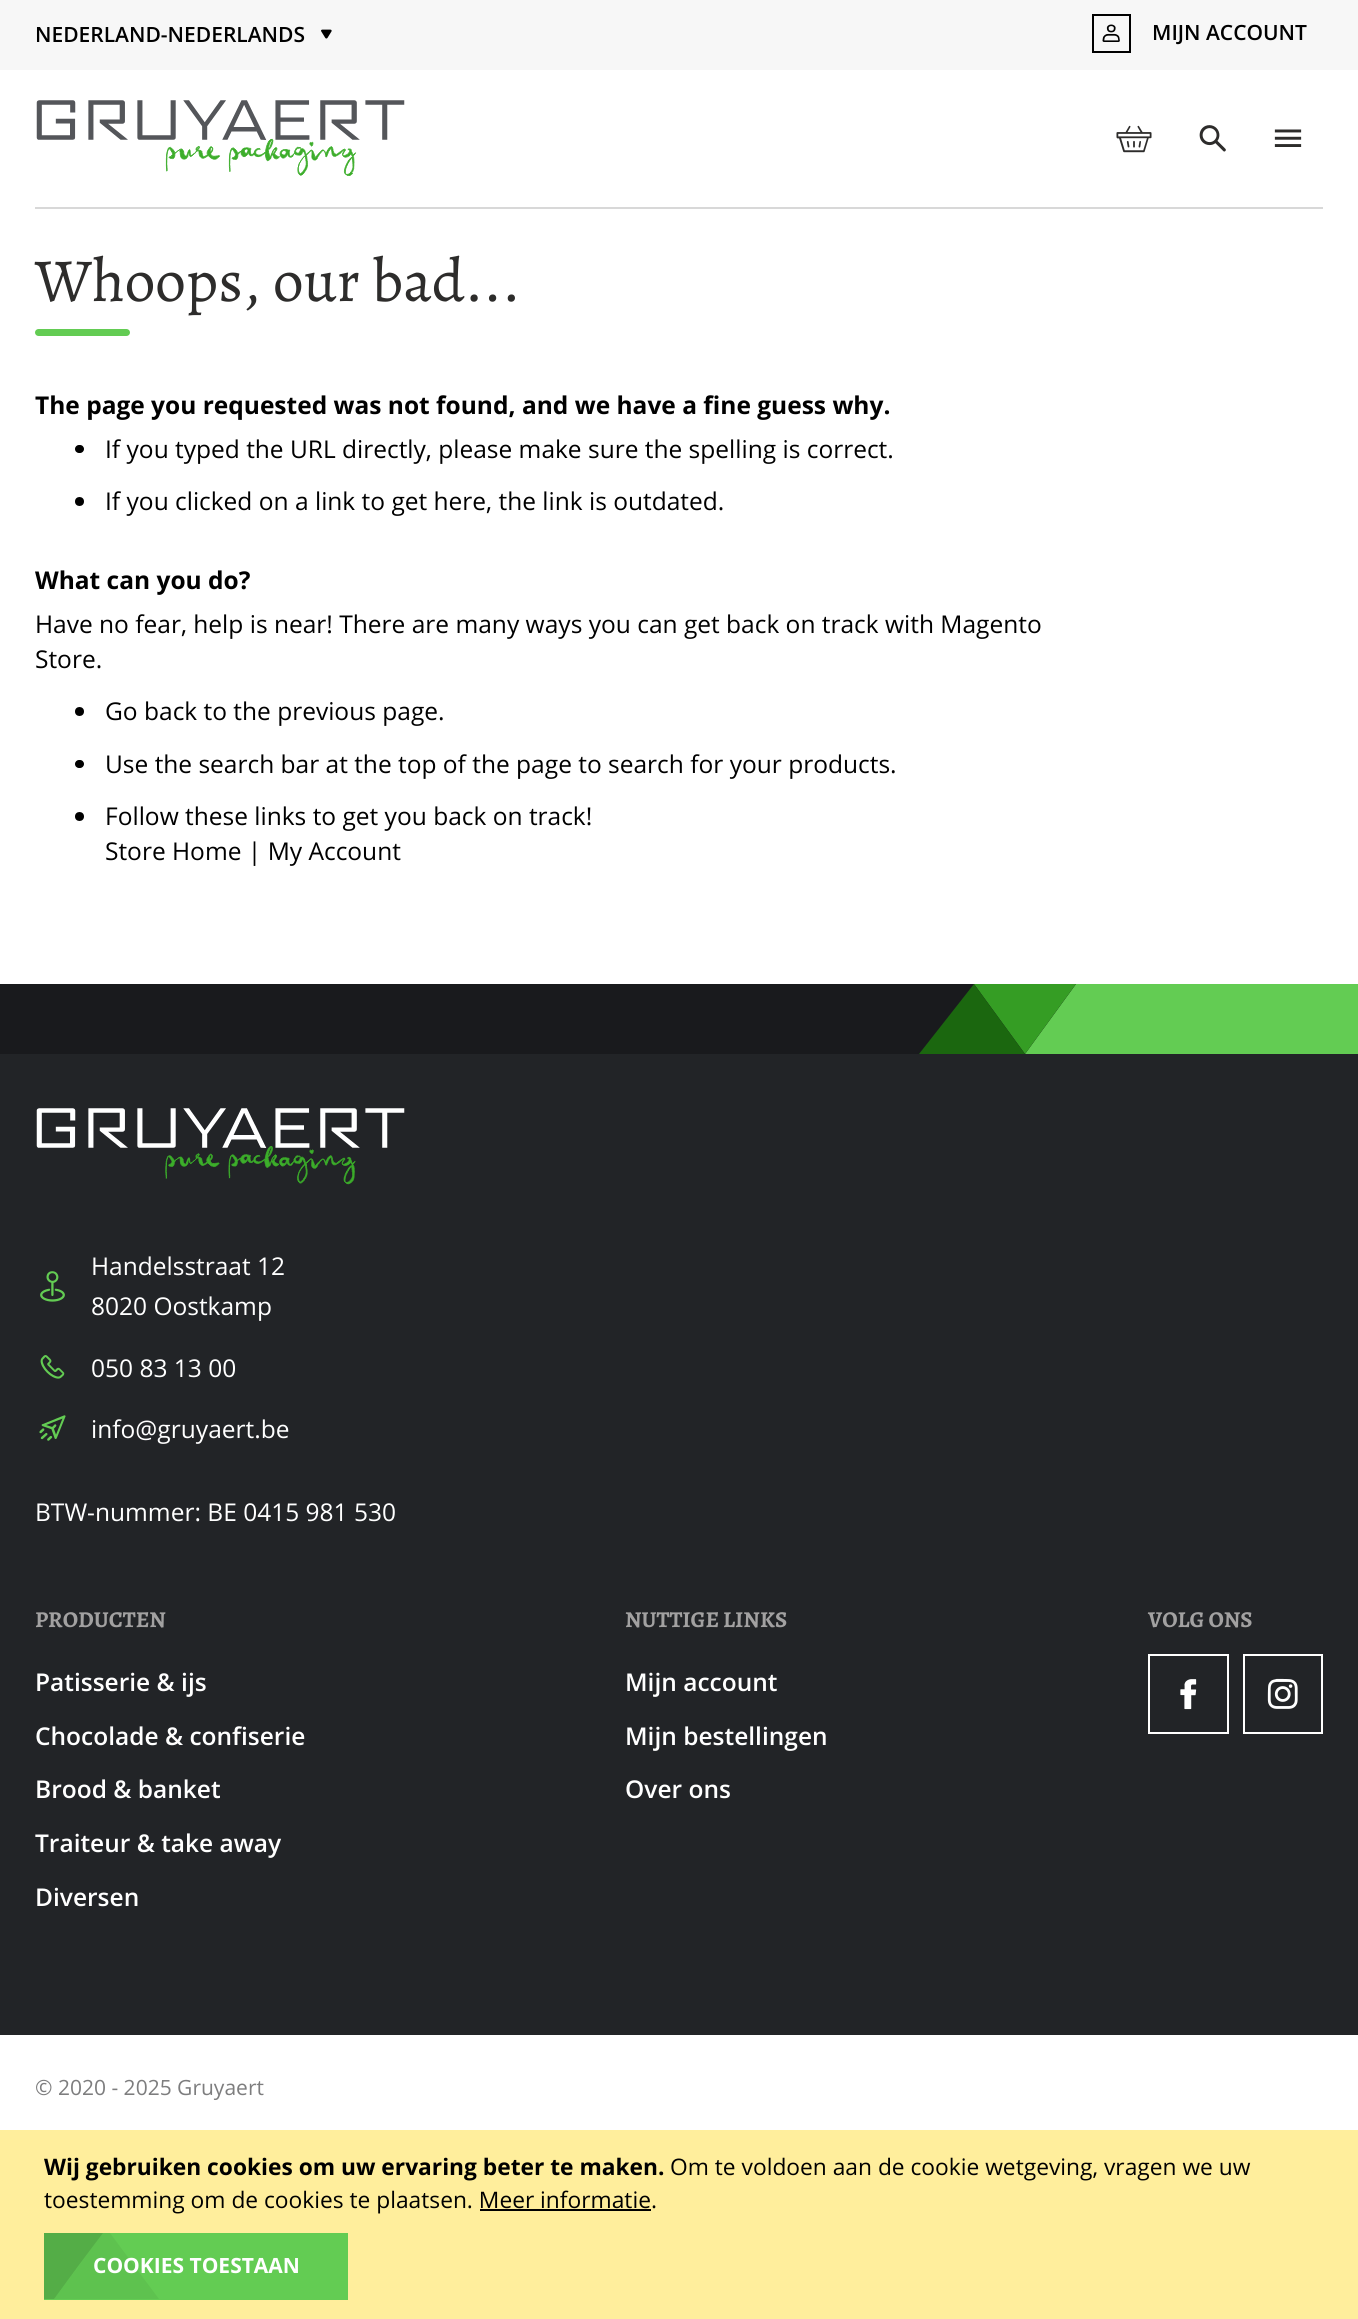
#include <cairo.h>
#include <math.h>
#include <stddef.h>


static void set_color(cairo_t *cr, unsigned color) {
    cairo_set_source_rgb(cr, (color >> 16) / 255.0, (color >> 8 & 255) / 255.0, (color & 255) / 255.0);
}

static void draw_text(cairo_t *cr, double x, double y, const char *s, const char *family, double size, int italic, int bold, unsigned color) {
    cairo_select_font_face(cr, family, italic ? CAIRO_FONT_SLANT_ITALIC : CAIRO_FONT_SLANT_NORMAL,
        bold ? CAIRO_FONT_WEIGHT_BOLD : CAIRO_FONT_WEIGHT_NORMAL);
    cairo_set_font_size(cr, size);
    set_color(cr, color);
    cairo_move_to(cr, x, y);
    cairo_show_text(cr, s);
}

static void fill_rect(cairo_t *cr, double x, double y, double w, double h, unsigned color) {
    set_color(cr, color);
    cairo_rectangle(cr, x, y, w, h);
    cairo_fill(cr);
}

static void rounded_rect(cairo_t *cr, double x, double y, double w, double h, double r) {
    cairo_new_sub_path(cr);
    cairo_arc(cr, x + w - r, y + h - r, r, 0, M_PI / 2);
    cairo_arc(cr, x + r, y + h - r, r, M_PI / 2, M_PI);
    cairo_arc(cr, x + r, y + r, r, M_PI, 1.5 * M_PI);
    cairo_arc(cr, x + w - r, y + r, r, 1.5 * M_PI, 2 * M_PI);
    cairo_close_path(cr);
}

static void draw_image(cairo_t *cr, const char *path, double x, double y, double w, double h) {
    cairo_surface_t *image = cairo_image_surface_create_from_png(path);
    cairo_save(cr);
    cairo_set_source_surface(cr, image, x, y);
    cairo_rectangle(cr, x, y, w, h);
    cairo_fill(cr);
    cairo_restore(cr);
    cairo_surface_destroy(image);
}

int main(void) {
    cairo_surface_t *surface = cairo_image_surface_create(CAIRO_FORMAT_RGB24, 1358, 2319);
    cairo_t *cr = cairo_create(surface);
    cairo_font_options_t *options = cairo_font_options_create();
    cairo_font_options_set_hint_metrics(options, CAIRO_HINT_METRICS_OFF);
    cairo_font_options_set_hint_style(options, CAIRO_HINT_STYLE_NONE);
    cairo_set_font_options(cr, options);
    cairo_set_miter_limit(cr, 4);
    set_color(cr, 0xFFFFFF);
    cairo_paint(cr);
    fill_rect(cr, 0, 0, 1358, 70, 0xF7F7F7);
    draw_text(cr, 35, 42, "NEDERLAND-NEDERLANDS", "Open Sans SemiBold", 21, 0, 0, 0x000000);
    draw_image(cr, "assets/img1.png", 321, 29, 11, 10);
    cairo_rectangle(cr, 1093, 15, 37, 37);
    cairo_stroke(cr);
    draw_image(cr, "assets/img2.png", 1102, 24, 18, 18);
    draw_text(cr, 1152, 40, "MIJN ACCOUNT", "Open Sans SemiBold", 21, 0, 0, 0x000000);
    fill_rect(cr, 35, 207, 1288, 2, 0xD8D8D8);
    draw_image(cr, "assets/img3.png", 36, 100, 369, 76);
    draw_image(cr, "assets/img4.png", 1116, 125, 36, 28);
    draw_image(cr, "assets/img5.png", 1199, 125, 27, 27);
    draw_image(cr, "assets/img6.png", 1274, 129, 28, 18);
    draw_text(cr, 35, 301, "Whoops, our bad...", "Alegreya", 61.25, 0, 0, 0x2D2C2B);
    set_color(cr, 0x63CC53);
    rounded_rect(cr, 35, 329, 95, 7, 3.5);
    cairo_fill(cr);
    draw_text(cr, 35, 414, "The page you requested was not found, and we have a fine guess why.", "Open Sans", 24.5, 0, 1, 0x000000);
    rounded_rect(cr, 75, 445, 9, 8, 4);
    cairo_fill(cr);
    draw_text(cr, 105, 458, "If you typed the URL directly, please make sure the spelling is correct.", "Open Sans", 24.5, 0, 0, 0x000000);
    cairo_new_path(cr);
    cairo_arc(cr, 79.5, 501.5, 4.5, 0, 2 * M_PI);
    cairo_fill(cr);
    draw_text(cr, 105, 510, "If you clicked on a link to get here, the link is outdated.", "Open Sans", 24.5, 0, 0, 0x000000);
    draw_text(cr, 35, 589, "What can you do?", "Open Sans", 24.5, 0, 1, 0x000000);
    draw_text(cr, 35, 633, "Have no fear, help is near! There are many ways you can get back on track with Magento", "Open Sans", 24.5, 0, 0, 0x000000);
    draw_text(cr, 35, 668, "Store.", "Open Sans", 24.5, 0, 0, 0x000000);
    cairo_new_path(cr);
    cairo_arc(cr, 79.5, 711.5, 4.5, 0, 2 * M_PI);
    cairo_fill(cr);
    draw_text(cr, 105, 720, "Go back to the previous page.", "Open Sans", 24.5, 0, 0, 0x000000);
    rounded_rect(cr, 75, 760, 9, 8, 4);
    cairo_fill(cr);
    draw_text(cr, 105, 773, "Use the search bar at the top of the page to search for your products.", "Open Sans", 24.5, 0, 0, 0x000000);
    cairo_new_path(cr);
    cairo_arc(cr, 79.5, 816.5, 4.5, 0, 2 * M_PI);
    cairo_fill(cr);
    draw_text(cr, 105, 825, "Follow these links to get you back on track!", "Open Sans", 24.5, 0, 0, 0x000000);
    draw_text(cr, 105, 860, "Store Home | My Account", "Open Sans", 24.5, 0, 0, 0x000000);
    fill_rect(cr, 0, 1054, 1358, 981, 0x222427);
    fill_rect(cr, 0, 984, 1076, 70, 0x191A1D);
    set_color(cr, 0x63CC53);
    cairo_set_fill_rule(cr, CAIRO_FILL_RULE_EVEN_ODD);
    cairo_new_path(cr);
    cairo_move_to(cr, 1076, 984);
    cairo_line_to(cr, 1358, 984);
    cairo_line_to(cr, 1358, 1054);
    cairo_line_to(cr, 1025, 1054);
    cairo_close_path(cr);
    cairo_fill(cr);
    set_color(cr, 0x359D24);
    cairo_new_path(cr);
    cairo_move_to(cr, 1025, 1054);
    cairo_line_to(cr, 974, 984);
    cairo_line_to(cr, 1076, 984);
    cairo_close_path(cr);
    cairo_fill(cr);
    set_color(cr, 0x1B670F);
    cairo_new_path(cr);
    cairo_move_to(cr, 974, 984);
    cairo_line_to(cr, 1025, 1054);
    cairo_line_to(cr, 919, 1054);
    cairo_close_path(cr);
    cairo_fill(cr);
    draw_image(cr, "assets/img7.png", 36, 1108, 369, 77);
    draw_image(cr, "assets/img8.png", 40, 1271, 25, 31);
    draw_text(cr, 91, 1275, "Handelsstraat 12", "Open Sans", 24.5, 0, 0, 0xFFFFFF);
    draw_text(cr, 91, 1315, "8020 Oostkamp", "Open Sans", 24.5, 0, 0, 0xFFFFFF);
    draw_image(cr, "assets/img9.png", 40, 1355, 25, 24);
    draw_text(cr, 91, 1377, "050 83 13 00", "Open Sans", 24.5, 0, 0, 0xFFFFFF);
    draw_image(cr, "assets/img10.png", 39, 1415, 27, 26);
    draw_text(cr, 91, 1438, "info@gruyaert.be", "Open Sans", 24.5, 0, 0, 0xFFFFFF);
    draw_text(cr, 35, 1521, "BTW-nummer: BE 0415 981 530", "Open Sans", 24.5, 0, 0, 0xFFFFFF);
    draw_text(cr, 35, 1627, "PRODUCTEN", "Alegreya", 22.75, 0, 1, 0xA2A1A1);
    draw_text(cr, 35, 1691, "Patisserie & ijs", "Open Sans SemiBold", 24.5, 0, 0, 0xFFFFFF);
    draw_text(cr, 35, 1745, "Chocolade & confiserie", "Open Sans SemiBold", 24.5, 0, 0, 0xFFFFFF);
    draw_text(cr, 35, 1798, "Brood & banket", "Open Sans SemiBold", 24.5, 0, 0, 0xFFFFFF);
    draw_text(cr, 35, 1852, "Traiteur & take away", "Open Sans SemiBold", 24.5, 0, 0, 0xFFFFFF);
    draw_text(cr, 35, 1906, "Diversen", "Open Sans SemiBold", 24.5, 0, 0, 0xFFFFFF);
    draw_text(cr, 625, 1627, "NUTTIGE LINKS", "Alegreya", 22.75, 0, 1, 0xA2A1A1);
    draw_text(cr, 625, 1691, "Mijn account", "Open Sans SemiBold", 24.5, 0, 0, 0xFFFFFF);
    draw_text(cr, 625, 1745, "Mijn bestellingen", "Open Sans SemiBold", 24.5, 0, 0, 0xFFFFFF);
    draw_text(cr, 625, 1798, "Over ons", "Open Sans SemiBold", 24.5, 0, 0, 0xFFFFFF);
    draw_text(cr, 1148, 1627, "VOLG ONS", "Alegreya", 22.75, 0, 1, 0xA2A1A1);
    cairo_rectangle(cr, 1149, 1655, 79, 78);
    set_color(cr, 0xFFFFFF);
    cairo_stroke(cr);
    draw_image(cr, "assets/img11.png", 1180, 1679, 17, 31);
    cairo_rectangle(cr, 1244, 1655, 78, 78);
    cairo_stroke(cr);
    draw_image(cr, "assets/img12.png", 1267, 1678, 31, 31);
    draw_text(cr, 35, 2095, "© 2020 - 2025 Gruyaert", "Open Sans", 21, 0, 0, 0x7D7D7E);
    fill_rect(cr, 0, 2130, 1358, 189, 0xFFEE9C);
    draw_text(cr, 44, 2175, "Wij gebruiken cookies om uw ervaring beter te maken.", "Open Sans", 22.75, 0, 1, 0x000000);
    draw_text(cr, 670, 2175, "Om te voldoen aan de cookie wetgeving, vragen we uw", "Open Sans", 22.75, 0, 0, 0x000000);
    draw_text(cr, 44, 2208, "toestemming om de cookies te plaatsen. Meer informatie.", "Open Sans", 22.75, 0, 0, 0x000000);
    fill_rect(cr, 480, 2209, 171, 2, 0x000000);
    fill_rect(cr, 44, 2233, 304, 67, 0x63CC53);
    set_color(cr, 0x54AD47);
    cairo_set_fill_rule(cr, CAIRO_FILL_RULE_WINDING);
    cairo_new_path(cr);
    cairo_move_to(cr, 103, 2233);
    cairo_line_to(cr, 44, 2233);
    cairo_line_to(cr, 44, 2299);
    cairo_line_to(cr, 54, 2299);
    cairo_line_to(cr, 79, 2265);
    cairo_close_path(cr);
    cairo_fill(cr);
    cairo_set_source_rgba(cr, 0, 0, 0, 0.05);
    cairo_new_path(cr);
    cairo_move_to(cr, 103, 2233);
    cairo_line_to(cr, 54, 2299);
    cairo_line_to(cr, 159, 2299);
    cairo_line_to(cr, 110, 2233);
    cairo_close_path(cr);
    cairo_fill(cr);
    draw_text(cr, 93, 2273, "COOKIES TOESTAAN", "Open Sans", 21, 0, 1, 0xFFFFFF);
    cairo_surface_write_to_png(surface, "output.png");
    cairo_font_options_destroy(options);
    cairo_destroy(cr);
    cairo_surface_destroy(surface);
    return 0;
}
